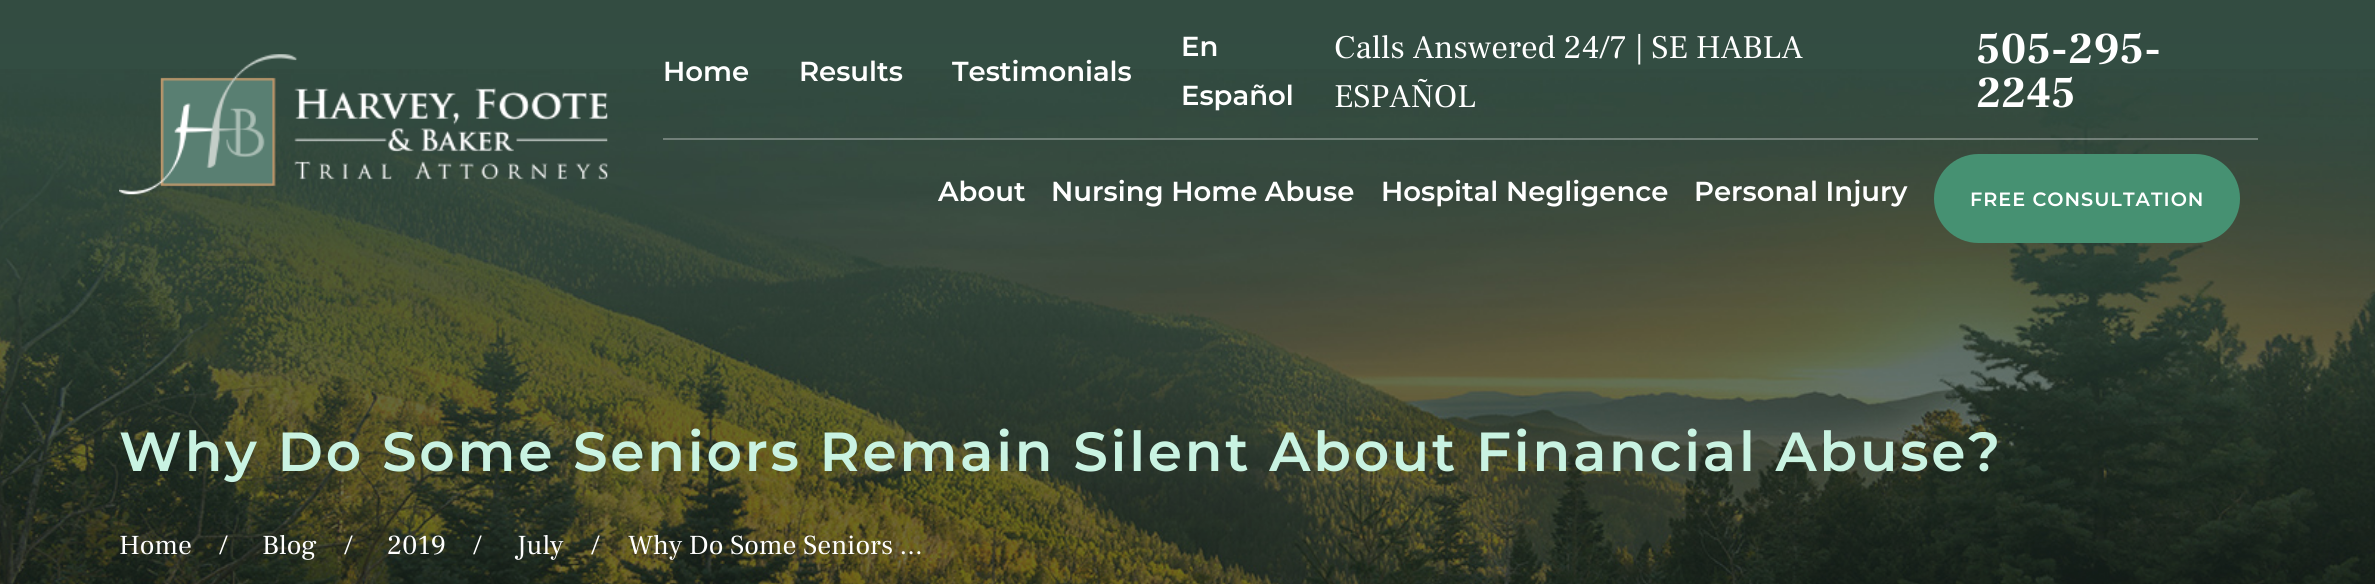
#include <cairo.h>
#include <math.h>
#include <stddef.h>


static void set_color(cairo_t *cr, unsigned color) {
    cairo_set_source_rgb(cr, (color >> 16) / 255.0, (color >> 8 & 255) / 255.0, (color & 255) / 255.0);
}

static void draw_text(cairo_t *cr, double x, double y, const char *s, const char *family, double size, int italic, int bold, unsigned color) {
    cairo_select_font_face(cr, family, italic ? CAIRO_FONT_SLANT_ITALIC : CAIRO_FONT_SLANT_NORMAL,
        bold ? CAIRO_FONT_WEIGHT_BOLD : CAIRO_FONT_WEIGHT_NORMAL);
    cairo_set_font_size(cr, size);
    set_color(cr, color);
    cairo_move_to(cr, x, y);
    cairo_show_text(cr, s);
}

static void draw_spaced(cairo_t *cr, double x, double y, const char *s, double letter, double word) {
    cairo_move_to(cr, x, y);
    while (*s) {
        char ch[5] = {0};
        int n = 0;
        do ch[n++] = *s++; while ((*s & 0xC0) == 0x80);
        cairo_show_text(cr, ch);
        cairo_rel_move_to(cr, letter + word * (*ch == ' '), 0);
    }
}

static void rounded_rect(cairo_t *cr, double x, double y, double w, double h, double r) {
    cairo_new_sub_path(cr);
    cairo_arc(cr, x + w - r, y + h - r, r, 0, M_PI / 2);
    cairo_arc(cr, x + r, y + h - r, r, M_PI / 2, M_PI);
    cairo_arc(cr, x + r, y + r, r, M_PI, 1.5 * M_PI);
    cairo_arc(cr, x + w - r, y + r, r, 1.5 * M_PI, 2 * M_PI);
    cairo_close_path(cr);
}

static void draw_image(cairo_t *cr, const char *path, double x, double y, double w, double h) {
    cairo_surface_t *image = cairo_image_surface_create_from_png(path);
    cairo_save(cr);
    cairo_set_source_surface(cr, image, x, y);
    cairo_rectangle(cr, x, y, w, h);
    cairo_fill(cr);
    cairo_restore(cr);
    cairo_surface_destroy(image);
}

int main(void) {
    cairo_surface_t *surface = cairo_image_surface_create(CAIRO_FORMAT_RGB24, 2375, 584);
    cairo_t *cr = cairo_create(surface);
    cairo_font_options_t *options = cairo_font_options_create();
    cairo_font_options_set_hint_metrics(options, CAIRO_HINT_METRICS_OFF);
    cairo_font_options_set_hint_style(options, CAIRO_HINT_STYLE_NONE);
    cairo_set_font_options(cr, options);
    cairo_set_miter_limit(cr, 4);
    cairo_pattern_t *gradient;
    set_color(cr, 0x385448);
    cairo_paint(cr);
    draw_image(cr, "assets/img2.png", 0, 69, 2375, 515);
    gradient = cairo_pattern_create_linear(1188, 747, 1188, 0);
    cairo_pattern_add_color_stop_rgba(gradient, 0, 0, 0, 0, 0.1);
    cairo_pattern_add_color_stop_rgba(gradient, 0.5, 0, 0, 0, 0);
    cairo_pattern_add_color_stop_rgba(gradient, 1, 0, 0, 0, 0.1);
    cairo_set_source(cr, gradient);
    cairo_pattern_destroy(gradient);
    cairo_rectangle(cr, 0, 0, 2375, 584);
    cairo_fill(cr);
    draw_image(cr, "assets/img1.png", 119, 54, 489, 141);
    cairo_set_source_rgba(cr, 1, 1, 1, 0.3);
    cairo_rectangle(cr, 663, 138, 1595, 2);
    cairo_fill(cr);
    draw_text(cr, 663, 81, "Home", "Montserrat SemiBold", 27.5, 0, 0, 0xFFFFFF);
    draw_text(cr, 799, 81, "Results", "Montserrat SemiBold", 27.5, 0, 0, 0xFFFFFF);
    draw_text(cr, 952, 81, "Testimonials", "Montserrat SemiBold", 27.5, 0, 0, 0xFFFFFF);
    draw_text(cr, 1181, 56, "En", "Montserrat SemiBold", 27.5, 0, 0, 0xFFFFFF);
    draw_text(cr, 1181, 105, "Español", "Montserrat SemiBold", 27.5, 0, 0, 0xFFFFFF);
    draw_text(cr, 1334, 58, "Calls Answered 24/7 | SE HABLA", "Frank Ruhl Libre", 33, 0, 0, 0xFFFFFF);
    draw_text(cr, 1334, 107, "ESPAÑOL", "Frank Ruhl Libre", 33, 0, 0, 0xFFFFFF);
    draw_text(cr, 1976, 63, "505-295-", "Frank Ruhl Libre", 44, 0, 1, 0xFFFFFF);
    draw_text(cr, 1976, 107, "2245", "Frank Ruhl Libre", 44, 0, 1, 0xFFFFFF);
    draw_text(cr, 938, 201, "About", "Montserrat SemiBold", 27.5, 0, 0, 0xFFFFFF);
    draw_text(cr, 1051, 201, "Nursing Home Abuse", "Montserrat SemiBold", 27.5, 0, 0, 0xFFFFFF);
    draw_text(cr, 1381, 201, "Hospital Negligence", "Montserrat SemiBold", 27.5, 0, 0, 0xFFFFFF);
    draw_text(cr, 1694, 201, "Personal Injury", "Montserrat SemiBold", 27.5, 0, 0, 0xFFFFFF);
    set_color(cr, 0x469172);
    rounded_rect(cr, 1934, 154, 306, 89, 44.5);
    cairo_fill(cr);
    cairo_set_font_size(cr, 19.25);
    set_color(cr, 0xFFFFFF);
    draw_spaced(cr, 1970, 206, "FREE CONSULTATION", 1, 0);
    cairo_set_font_size(cr, 55);
    set_color(cr, 0xC9F3E2);
    draw_spaced(cr, 119, 471, "Why Do Some Seniors Remain Silent About Financial Abuse?", 2.75, 0);
    draw_text(cr, 119, 554, "Home", "Frank Ruhl Libre", 27.5, 0, 0, 0xFFFFFF);
    draw_text(cr, 219, 554, "/", "Frank Ruhl Libre", 27.5, 0, 0, 0xFFFFFF);
    draw_text(cr, 262, 554, "Blog", "Frank Ruhl Libre", 27.5, 0, 0, 0xFFFFFF);
    draw_text(cr, 344, 554, "/", "Frank Ruhl Libre", 27.5, 0, 0, 0xFFFFFF);
    draw_text(cr, 387, 554, "2019", "Frank Ruhl Libre", 27.5, 0, 0, 0xFFFFFF);
    draw_text(cr, 473, 554, "/", "Frank Ruhl Libre", 27.5, 0, 0, 0xFFFFFF);
    draw_text(cr, 516, 554, "July", "Frank Ruhl Libre", 27.5, 0, 0, 0xFFFFFF);
    draw_text(cr, 591, 554, "/", "Frank Ruhl Libre", 27.5, 0, 0, 0xFFFFFF);
    draw_text(cr, 628, 554, "Why Do Some Seniors ...", "Frank Ruhl Libre", 27.5, 0, 0, 0xFFFFFF);
    cairo_surface_write_to_png(surface, "output.png");
    cairo_font_options_destroy(options);
    cairo_destroy(cr);
    cairo_surface_destroy(surface);
    return 0;
}
